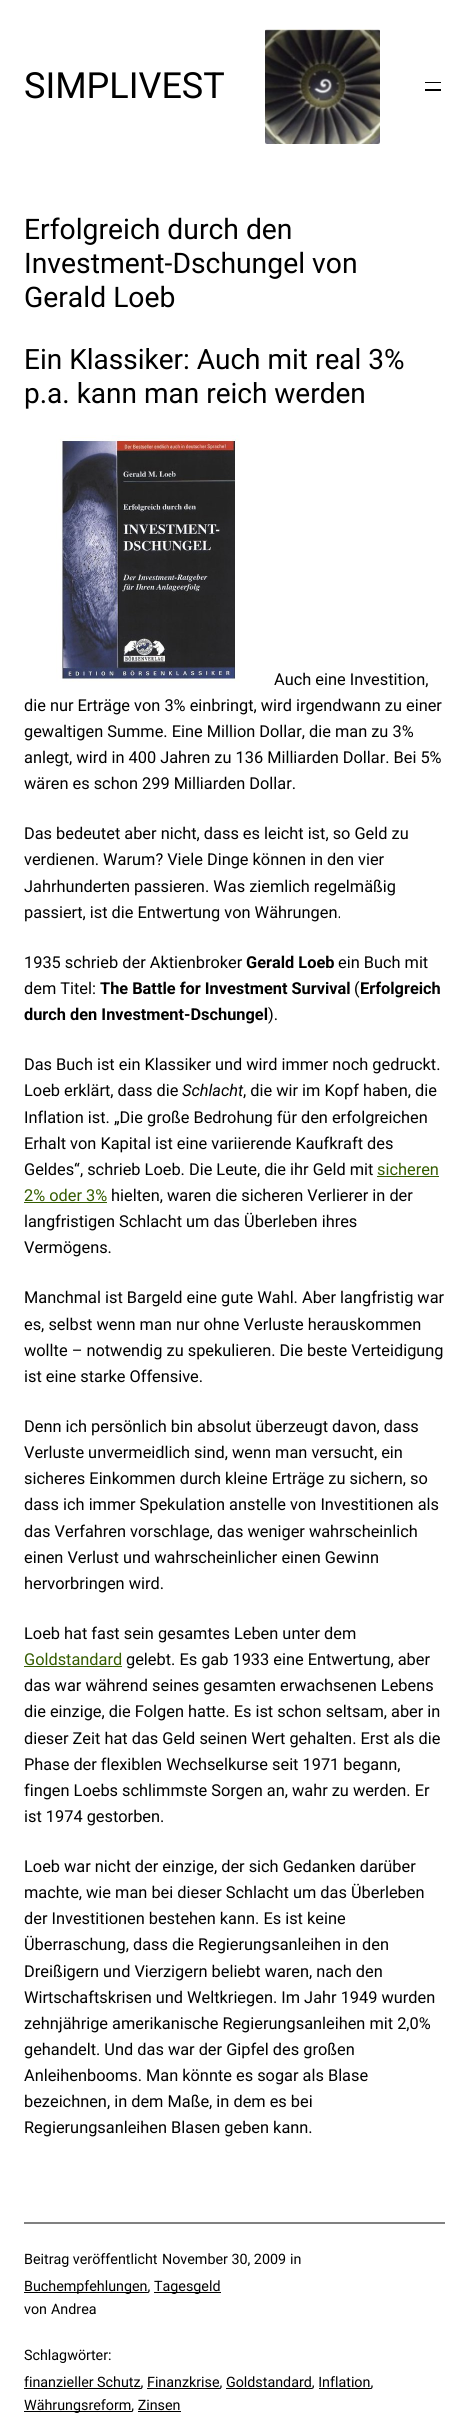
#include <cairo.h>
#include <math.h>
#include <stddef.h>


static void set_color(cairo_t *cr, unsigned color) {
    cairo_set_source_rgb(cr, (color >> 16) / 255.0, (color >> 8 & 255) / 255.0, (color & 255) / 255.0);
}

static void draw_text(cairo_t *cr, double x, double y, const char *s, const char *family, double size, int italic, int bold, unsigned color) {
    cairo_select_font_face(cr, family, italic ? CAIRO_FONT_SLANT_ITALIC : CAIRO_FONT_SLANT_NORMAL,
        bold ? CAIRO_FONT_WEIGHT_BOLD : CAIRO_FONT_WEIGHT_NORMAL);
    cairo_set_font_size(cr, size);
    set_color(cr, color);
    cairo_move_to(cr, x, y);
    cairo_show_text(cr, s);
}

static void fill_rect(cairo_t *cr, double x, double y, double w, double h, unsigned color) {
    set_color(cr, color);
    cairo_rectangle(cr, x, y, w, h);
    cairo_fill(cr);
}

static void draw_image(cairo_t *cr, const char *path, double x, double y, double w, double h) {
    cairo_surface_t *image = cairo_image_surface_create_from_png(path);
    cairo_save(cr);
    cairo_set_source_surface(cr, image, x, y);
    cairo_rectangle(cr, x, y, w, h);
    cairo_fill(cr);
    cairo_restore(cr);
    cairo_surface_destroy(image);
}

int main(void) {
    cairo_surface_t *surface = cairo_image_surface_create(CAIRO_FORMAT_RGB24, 469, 2432);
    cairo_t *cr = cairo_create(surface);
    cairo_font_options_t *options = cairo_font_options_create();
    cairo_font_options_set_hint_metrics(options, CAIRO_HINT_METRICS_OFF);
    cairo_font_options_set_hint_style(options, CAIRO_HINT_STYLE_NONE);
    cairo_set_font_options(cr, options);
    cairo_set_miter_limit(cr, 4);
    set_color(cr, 0xFFFFFF);
    cairo_paint(cr);
    draw_text(cr, 24, 98, "SIMPLIVEST", "Roboto", 36, 0, 0, 0x000000);
    draw_image(cr, "assets/img1.png", 265, 29, 115, 115);
    fill_rect(cr, 425, 82, 16, 1, 0x000000);
    fill_rect(cr, 425, 89, 16, 2, 0x000000);
    draw_text(cr, 24, 239, "Erfolgreich durch den", "Roboto", 28.3, 0, 0, 0x000000);
    draw_text(cr, 24, 273, "Investment-Dschungel von", "Roboto", 28.3, 0, 0, 0x000000);
    draw_text(cr, 24, 307, "Gerald Loeb", "Roboto", 28.3, 0, 0, 0x000000);
    draw_text(cr, 24, 369, "Ein Klassiker: Auch mit real 3%", "Roboto", 28, 0, 0, 0x000000);
    draw_text(cr, 24, 403, "p.a. kann man reich werden", "Roboto", 28, 0, 0, 0x000000);
    draw_image(cr, "assets/img2.png", 56, 435, 184, 247);
    draw_text(cr, 274, 685, "Auch eine Investition,", "Roboto", 16.35, 0, 0, 0x000000);
    draw_text(cr, 24, 711, "die nur Erträge von 3% einbringt, wird irgendwann zu einer", "Roboto", 16.35, 0, 0, 0x000000);
    draw_text(cr, 24, 737, "gewaltigen Summe. Eine Million Dollar, die man zu 3%", "Roboto", 16.35, 0, 0, 0x000000);
    draw_text(cr, 24, 763, "anlegt, wird in 400 Jahren zu 136 Milliarden Dollar. Bei 5%", "Roboto", 16.35, 0, 0, 0x000000);
    draw_text(cr, 24, 789, "wären es schon 299 Milliarden Dollar.", "Roboto", 16.35, 0, 0, 0x000000);
    draw_text(cr, 24, 839, "Das bedeutet aber nicht, dass es leicht ist, so Geld zu", "Roboto", 16.35, 0, 0, 0x000000);
    draw_text(cr, 24, 865, "verdienen. Warum? Viele Dinge können in den vier", "Roboto", 16.35, 0, 0, 0x000000);
    draw_text(cr, 24, 892, "Jahrhunderten passieren. Was ziemlich regelmäßig", "Roboto", 16.35, 0, 0, 0x000000);
    draw_text(cr, 24, 918, "passiert, ist die Entwertung von Währungen.", "Roboto", 16.35, 0, 0, 0x000000);
    draw_text(cr, 24, 968, "1935 schrieb der Aktienbroker", "Roboto", 16.35, 0, 0, 0x000000);
    draw_text(cr, 246, 968, "Gerald Loeb", "Roboto", 16.35, 0, 1, 0x000000);
    draw_text(cr, 338, 968, "ein Buch mit", "Roboto", 16.35, 0, 0, 0x000000);
    draw_text(cr, 24, 994, "dem Titel:", "Roboto", 16.35, 0, 0, 0x000000);
    draw_text(cr, 100, 994, "The Battle for Investment Survival", "Roboto", 16.35, 0, 1, 0x000000);
    draw_text(cr, 354, 994, "(", "Roboto", 16.35, 0, 0, 0x000000);
    draw_text(cr, 360, 994, "Erfolgreich", "Roboto", 16.35, 0, 1, 0x000000);
    draw_text(cr, 24, 1020, "durch den Investment-Dschungel", "Roboto", 16.35, 0, 1, 0x000000);
    draw_text(cr, 268, 1020, ").", "Roboto", 16.35, 0, 0, 0x000000);
    draw_text(cr, 24, 1070, "Das Buch ist ein Klassiker und wird immer noch gedruckt.", "Roboto", 16.35, 0, 0, 0x000000);
    draw_text(cr, 24, 1096, "Loeb erklärt, dass die", "Roboto", 16.35, 0, 0, 0x000000);
    draw_text(cr, 182, 1096, "Schlacht", "Roboto", 16.35, 1, 0, 0x000000);
    draw_text(cr, 243, 1096, ", die wir im Kopf haben, die", "Roboto", 16.35, 0, 0, 0x000000);
    draw_text(cr, 24, 1123, "Inflation ist. „Die große Bedrohung für den erfolgreichen", "Roboto", 16.35, 0, 0, 0x000000);
    draw_text(cr, 24, 1149, "Erhalt von Kapital ist eine variierende Kaufkraft des", "Roboto", 16.35, 0, 0, 0x000000);
    draw_text(cr, 24, 1175, "Geldes“, schrieb Loeb. Die Leute, die ihr Geld mit", "Roboto", 16.35, 0, 0, 0x000000);
    draw_text(cr, 377, 1175, "sicheren", "Roboto", 16.35, 0, 0, 0x345C00);
    fill_rect(cr, 377, 1176, 62, 1, 0x345C00);
    draw_text(cr, 24, 1201, "2% oder 3%", "Roboto", 16.35, 0, 0, 0x345C00);
    fill_rect(cr, 24, 1202, 83, 1, 0x345C00);
    draw_text(cr, 111, 1201, "hielten, waren die sicheren Verlierer in der", "Roboto", 16.35, 0, 0, 0x000000);
    draw_text(cr, 24, 1227, "langfristigen Schlacht um das Überleben ihres", "Roboto", 16.35, 0, 0, 0x000000);
    draw_text(cr, 24, 1253, "Vermögens.", "Roboto", 16.35, 0, 0, 0x000000);
    draw_text(cr, 24, 1303, "Manchmal ist Bargeld eine gute Wahl. Aber langfristig war", "Roboto", 16.35, 0, 0, 0x000000);
    draw_text(cr, 24, 1330, "es, selbst wenn man nur ohne Verluste herauskommen", "Roboto", 16.35, 0, 0, 0x000000);
    draw_text(cr, 24, 1356, "wollte – notwendig zu spekulieren. Die beste Verteidigung", "Roboto", 16.35, 0, 0, 0x000000);
    draw_text(cr, 24, 1382, "ist eine starke Offensive.", "Roboto", 16.35, 0, 0, 0x000000);
    draw_text(cr, 24, 1432, "Denn ich persönlich bin absolut überzeugt davon, dass", "Roboto", 16.35, 0, 0, 0x000000);
    draw_text(cr, 24, 1458, "Verluste unvermeidlich sind, wenn man versucht, ein", "Roboto", 16.35, 0, 0, 0x000000);
    draw_text(cr, 24, 1484, "sicheres Einkommen durch kleine Erträge zu sichern, so", "Roboto", 16.35, 0, 0, 0x000000);
    draw_text(cr, 24, 1510, "dass ich immer Spekulation anstelle von Investitionen als", "Roboto", 16.35, 0, 0, 0x000000);
    draw_text(cr, 24, 1537, "das Verfahren vorschlage, das weniger wahrscheinlich", "Roboto", 16.35, 0, 0, 0x000000);
    draw_text(cr, 24, 1563, "einen Verlust und wahrscheinlicher einen Gewinn", "Roboto", 16.35, 0, 0, 0x000000);
    draw_text(cr, 24, 1589, "hervorbringen wird.", "Roboto", 16.35, 0, 0, 0x000000);
    draw_text(cr, 24, 1639, "Loeb hat fast sein gesamtes Leben unter dem", "Roboto", 16.35, 0, 0, 0x000000);
    draw_text(cr, 24, 1665, "Goldstandard", "Roboto", 16.35, 0, 0, 0x345C00);
    fill_rect(cr, 24, 1666, 98, 1, 0x345C00);
    draw_text(cr, 126, 1665, "gelebt. Es gab 1933 eine Entwertung, aber", "Roboto", 16.35, 0, 0, 0x000000);
    draw_text(cr, 24, 1691, "das war während seines gesamten erwachsenen Lebens", "Roboto", 16.35, 0, 0, 0x000000);
    draw_text(cr, 24, 1717, "die einzige, die Folgen hatte. Es ist schon seltsam, aber in", "Roboto", 16.35, 0, 0, 0x000000);
    draw_text(cr, 24, 1744, "dieser Zeit hat das Geld seinen Wert gehalten. Erst als die", "Roboto", 16.35, 0, 0, 0x000000);
    draw_text(cr, 24, 1770, "Phase der flexiblen Wechselkurse seit 1971 begann,", "Roboto", 16.35, 0, 0, 0x000000);
    draw_text(cr, 24, 1796, "fingen Loebs schlimmste Sorgen an, wahr zu werden. Er", "Roboto", 16.35, 0, 0, 0x000000);
    draw_text(cr, 24, 1822, "ist 1974 gestorben.", "Roboto", 16.35, 0, 0, 0x000000);
    draw_text(cr, 24, 1872, "Loeb war nicht der einzige, der sich Gedanken darüber", "Roboto", 16.35, 0, 0, 0x000000);
    draw_text(cr, 24, 1898, "machte, wie man bei dieser Schlacht um das Überleben", "Roboto", 16.35, 0, 0, 0x000000);
    draw_text(cr, 24, 1924, "der Investitionen bestehen kann. Es ist keine", "Roboto", 16.35, 0, 0, 0x000000);
    draw_text(cr, 24, 1950, "Überraschung, dass die Regierungsanleihen in den", "Roboto", 16.35, 0, 0, 0x000000);
    draw_text(cr, 24, 1977, "Dreißigern und Vierzigern beliebt waren, nach den", "Roboto", 16.35, 0, 0, 0x000000);
    draw_text(cr, 24, 2003, "Wirtschaftskrisen und Weltkriegen. Im Jahr 1949 wurden", "Roboto", 16.35, 0, 0, 0x000000);
    draw_text(cr, 24, 2029, "zehnjährige amerikanische Regierungsanleihen mit 2,0%", "Roboto", 16.35, 0, 0, 0x000000);
    draw_text(cr, 24, 2055, "gehandelt. Und das war der Gipfel des großen", "Roboto", 16.35, 0, 0, 0x000000);
    draw_text(cr, 24, 2081, "Anleihenbooms. Man könnte es sogar als Blase", "Roboto", 16.35, 0, 0, 0x000000);
    draw_text(cr, 24, 2107, "bezeichnen, in dem Maße, in dem es bei", "Roboto", 16.35, 0, 0, 0x000000);
    draw_text(cr, 24, 2133, "Regierungsanleihen Blasen geben kann.", "Roboto", 16.35, 0, 0, 0x000000);
    fill_rect(cr, 24, 2222, 421, 2, 0x808080);
    draw_text(cr, 24, 2264, "Beitrag veröffentlicht", "Roboto", 14.3, 0, 0, 0x000000);
    draw_text(cr, 162, 2264, "November 30, 2009", "Roboto", 14.3, 0, 0, 0x000000);
    draw_text(cr, 290, 2264, "in", "Roboto", 14.3, 0, 0, 0x000000);
    fill_rect(cr, 24, 2292, 124, 1, 0x000000);
    draw_text(cr, 24, 2291, "Buchempfehlungen,", "Roboto", 14.3, 0, 0, 0x000000);
    fill_rect(cr, 154, 2292, 67, 1, 0x000000);
    draw_text(cr, 154, 2291, "Tagesgeld", "Roboto", 14.3, 0, 0, 0x000000);
    draw_text(cr, 24, 2314, "von", "Roboto", 14.3, 0, 0, 0x000000);
    draw_text(cr, 51, 2314, "Andrea", "Roboto", 14.3, 0, 0, 0x000000);
    draw_text(cr, 24, 2360, "Schlagwörter:", "Roboto", 14.3, 0, 0, 0x000000);
    fill_rect(cr, 24, 2388, 117, 1, 0x000000);
    draw_text(cr, 24, 2387, "finanzieller Schutz, Finanzkrise, Goldstandard, Inflation,", "Roboto", 14.3, 0, 0, 0x000000);
    fill_rect(cr, 147, 2388, 73, 1, 0x000000);
    fill_rect(cr, 226, 2388, 86, 1, 0x000000);
    fill_rect(cr, 319, 2388, 52, 1, 0x000000);
    fill_rect(cr, 24, 2411, 108, 1, 0x000000);
    draw_text(cr, 24, 2410, "Währungsreform, Zinsen", "Roboto", 14.3, 0, 0, 0x000000);
    fill_rect(cr, 138, 2411, 43, 1, 0x000000);
    cairo_surface_write_to_png(surface, "output.png");
    cairo_font_options_destroy(options);
    cairo_destroy(cr);
    cairo_surface_destroy(surface);
    return 0;
}
